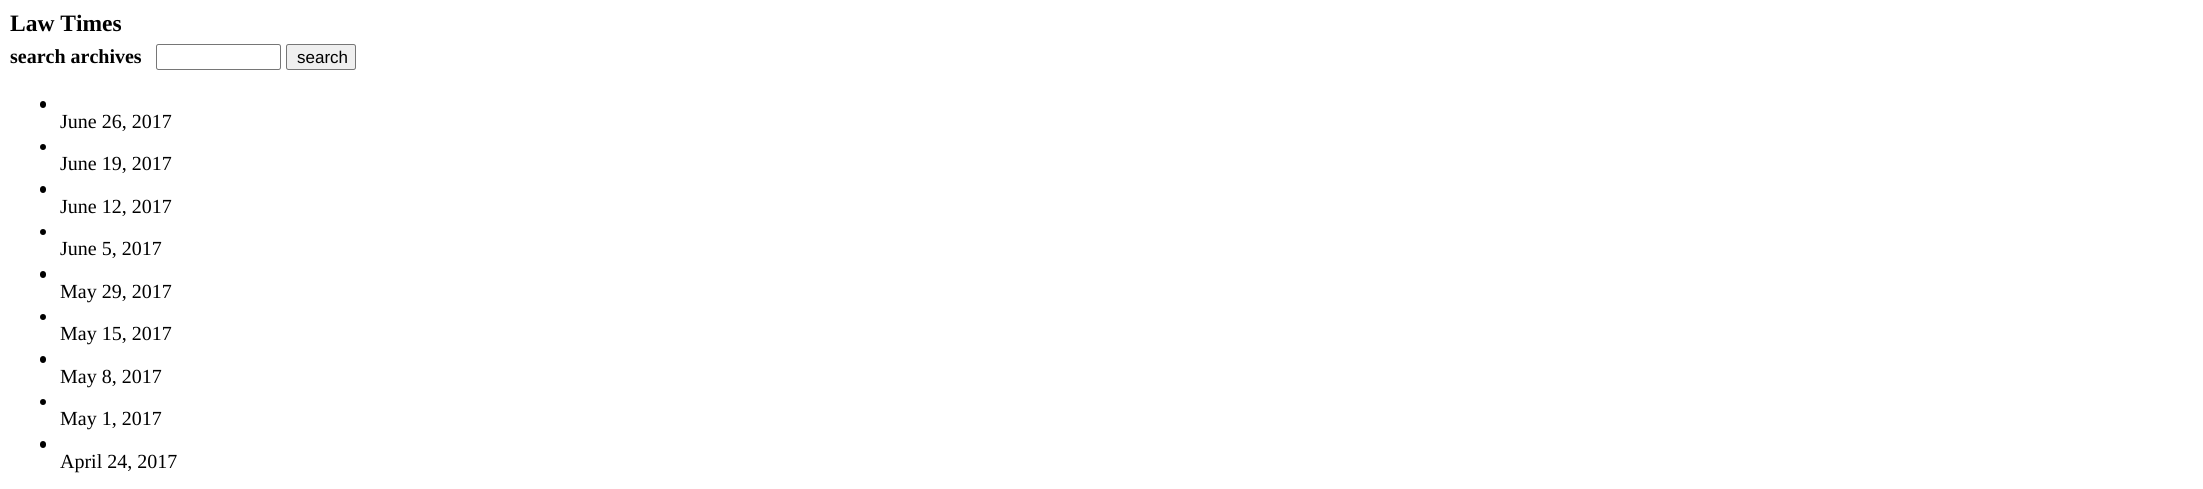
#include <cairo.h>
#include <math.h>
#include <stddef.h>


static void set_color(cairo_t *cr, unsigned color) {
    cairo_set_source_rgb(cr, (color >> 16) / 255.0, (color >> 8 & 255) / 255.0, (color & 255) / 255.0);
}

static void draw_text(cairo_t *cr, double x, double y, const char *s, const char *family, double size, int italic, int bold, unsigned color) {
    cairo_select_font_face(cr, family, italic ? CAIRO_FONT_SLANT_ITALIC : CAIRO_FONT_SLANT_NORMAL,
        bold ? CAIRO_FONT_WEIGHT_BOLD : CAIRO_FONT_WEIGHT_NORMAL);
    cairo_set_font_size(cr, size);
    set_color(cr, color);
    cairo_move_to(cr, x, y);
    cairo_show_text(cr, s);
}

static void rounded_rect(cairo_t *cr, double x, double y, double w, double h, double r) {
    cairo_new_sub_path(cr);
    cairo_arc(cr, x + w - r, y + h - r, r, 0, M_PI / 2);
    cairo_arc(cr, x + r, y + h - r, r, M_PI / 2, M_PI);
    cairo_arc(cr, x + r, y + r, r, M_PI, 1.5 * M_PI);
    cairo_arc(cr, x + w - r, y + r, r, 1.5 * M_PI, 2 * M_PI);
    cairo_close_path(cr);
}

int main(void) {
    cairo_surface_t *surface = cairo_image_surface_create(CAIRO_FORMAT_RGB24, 2203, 489);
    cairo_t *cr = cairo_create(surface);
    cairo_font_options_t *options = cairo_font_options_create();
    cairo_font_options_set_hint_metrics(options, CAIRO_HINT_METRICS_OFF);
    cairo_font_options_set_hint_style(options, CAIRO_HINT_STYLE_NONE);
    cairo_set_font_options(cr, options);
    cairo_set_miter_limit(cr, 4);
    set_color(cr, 0xFFFFFF);
    cairo_paint(cr);
    draw_text(cr, 10, 31, "Law Times", "Liberation Serif", 23.5, 0, 1, 0x000000);
    draw_text(cr, 10, 63, "search archives", "Liberation Serif", 20, 0, 1, 0x000000);
    rounded_rect(cr, 156.5, 44.5, 124, 25, 2);
    set_color(cr, 0x767676);
    cairo_set_line_width(cr, 1);
    cairo_stroke(cr);
    set_color(cr, 0xEFEFEF);
    rounded_rect(cr, 286.5, 44.5, 69, 25, 2);
    cairo_fill_preserve(cr);
    set_color(cr, 0x767676);
    cairo_stroke(cr);
    draw_text(cr, 297, 63, "search", "Liberation Sans", 17, 0, 0, 0x000000);
    rounded_rect(cr, 40, 101, 6, 7, 3);
    cairo_fill(cr);
    draw_text(cr, 60, 128, "June 26, 2017", "Liberation Serif", 20, 0, 0, 0x000000);
    cairo_new_path(cr);
    cairo_arc(cr, 43, 147, 3, 0, 2 * M_PI);
    cairo_fill(cr);
    draw_text(cr, 60, 170, "June 19, 2017", "Liberation Serif", 20, 0, 0, 0x000000);
    rounded_rect(cr, 40, 186, 6, 7, 3);
    cairo_fill(cr);
    draw_text(cr, 60, 213, "June 12, 2017", "Liberation Serif", 20, 0, 0, 0x000000);
    cairo_new_path(cr);
    cairo_arc(cr, 43, 232, 3, 0, 2 * M_PI);
    cairo_fill(cr);
    draw_text(cr, 60, 255, "June 5, 2017", "Liberation Serif", 20, 0, 0, 0x000000);
    rounded_rect(cr, 40, 271, 6, 7, 3);
    cairo_fill(cr);
    draw_text(cr, 60, 298, "May 29, 2017", "Liberation Serif", 20, 0, 0, 0x000000);
    cairo_new_path(cr);
    cairo_arc(cr, 43, 317, 3, 0, 2 * M_PI);
    cairo_fill(cr);
    draw_text(cr, 60, 340, "May 15, 2017", "Liberation Serif", 20, 0, 0, 0x000000);
    rounded_rect(cr, 40, 356, 6, 7, 3);
    cairo_fill(cr);
    draw_text(cr, 60, 383, "May 8, 2017", "Liberation Serif", 20, 0, 0, 0x000000);
    cairo_new_path(cr);
    cairo_arc(cr, 43, 402, 3, 0, 2 * M_PI);
    cairo_fill(cr);
    draw_text(cr, 60, 425, "May 1, 2017", "Liberation Serif", 20, 0, 0, 0x000000);
    rounded_rect(cr, 40, 441, 6, 7, 3);
    cairo_fill(cr);
    draw_text(cr, 60, 468, "April 24, 2017", "Liberation Serif", 20, 0, 0, 0x000000);
    cairo_surface_write_to_png(surface, "output.png");
    cairo_font_options_destroy(options);
    cairo_destroy(cr);
    cairo_surface_destroy(surface);
    return 0;
}
